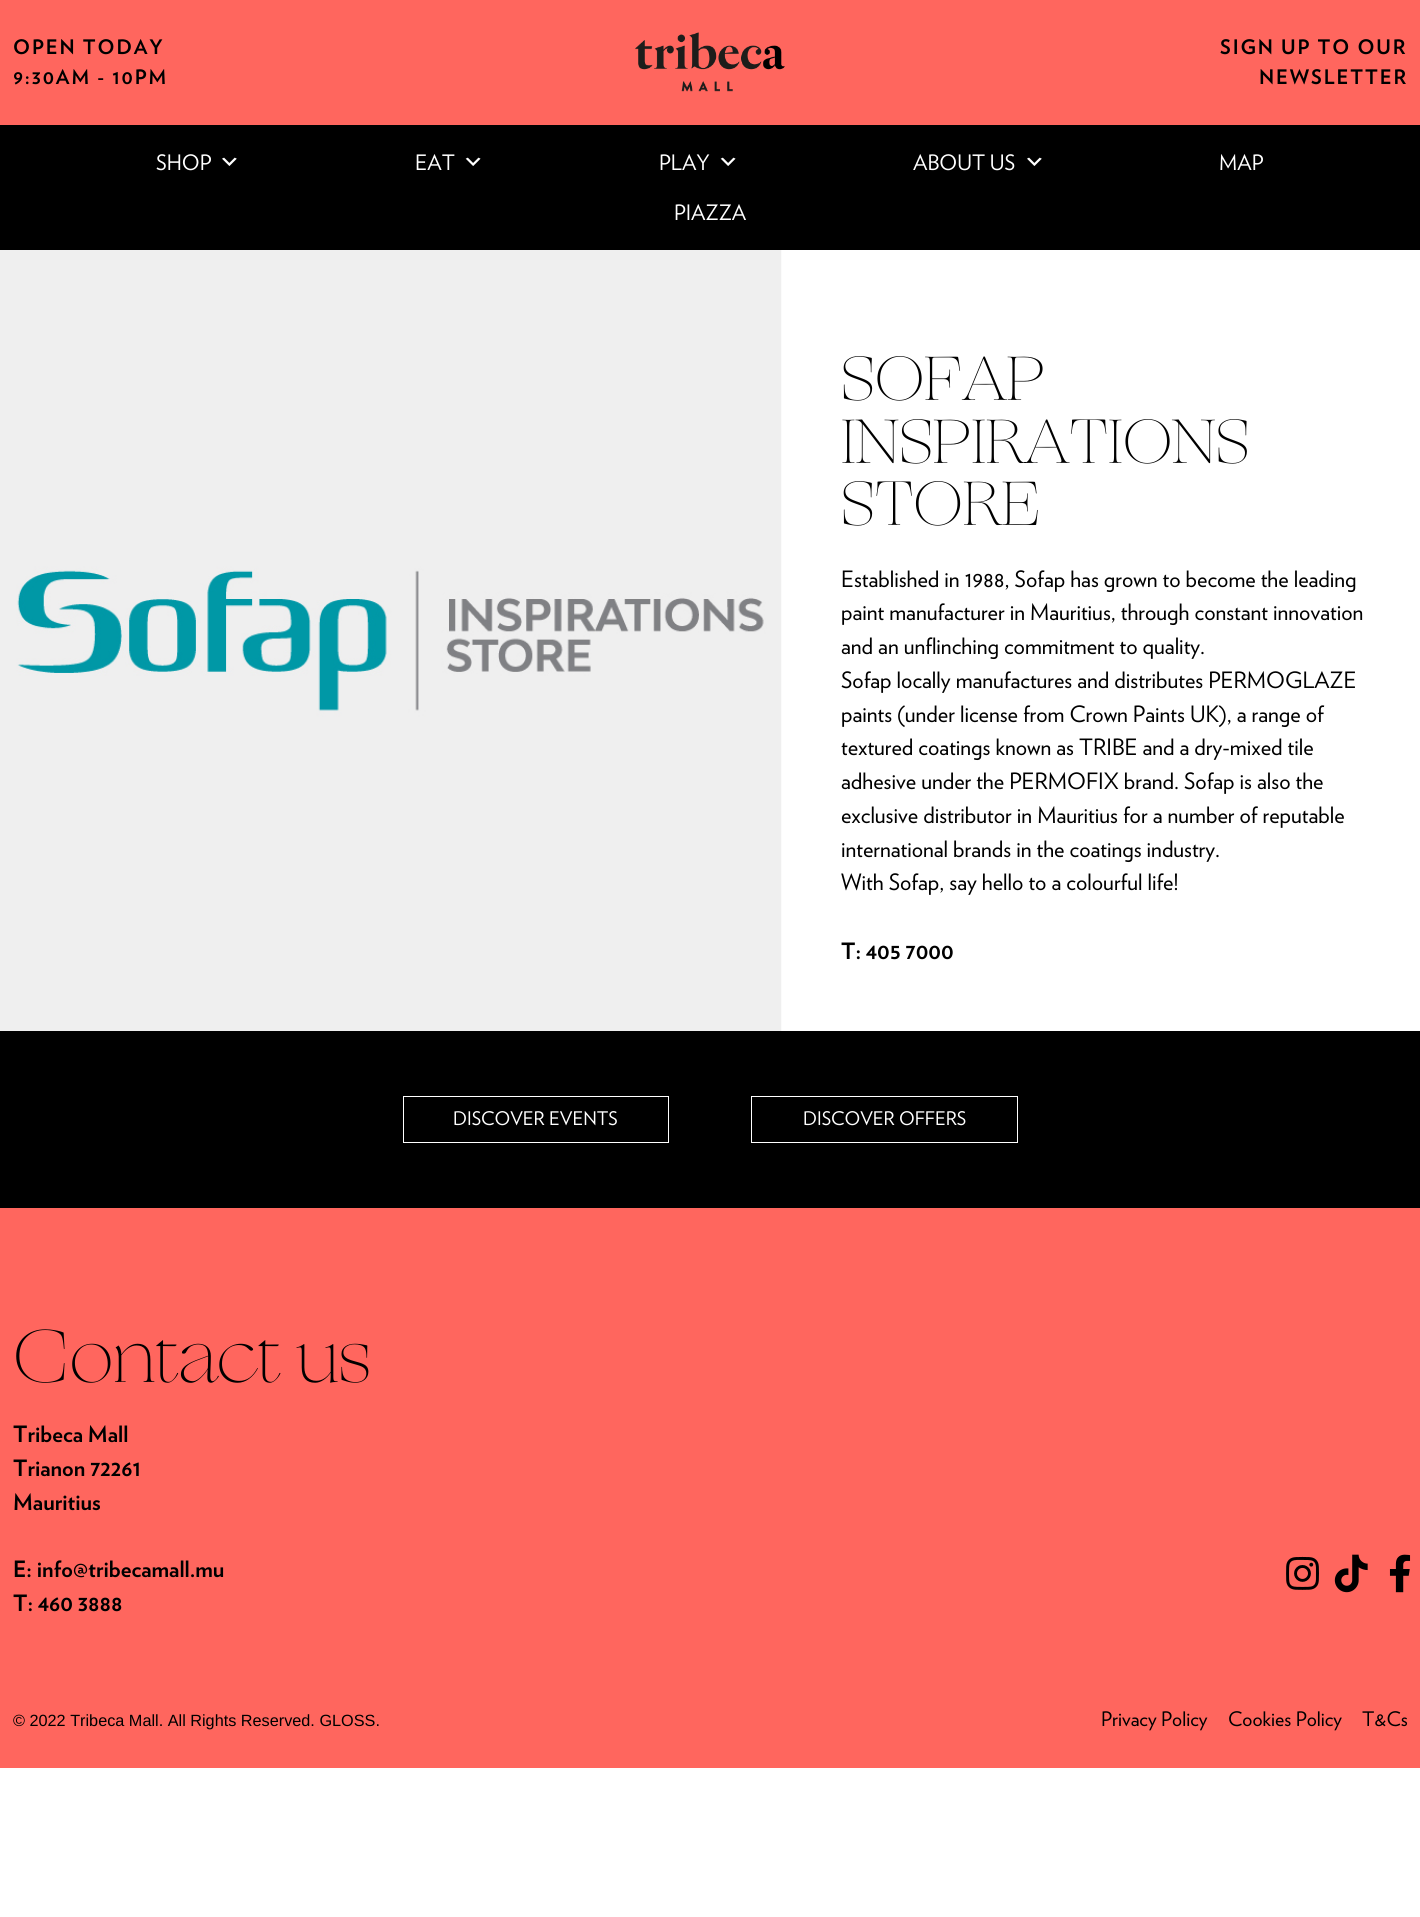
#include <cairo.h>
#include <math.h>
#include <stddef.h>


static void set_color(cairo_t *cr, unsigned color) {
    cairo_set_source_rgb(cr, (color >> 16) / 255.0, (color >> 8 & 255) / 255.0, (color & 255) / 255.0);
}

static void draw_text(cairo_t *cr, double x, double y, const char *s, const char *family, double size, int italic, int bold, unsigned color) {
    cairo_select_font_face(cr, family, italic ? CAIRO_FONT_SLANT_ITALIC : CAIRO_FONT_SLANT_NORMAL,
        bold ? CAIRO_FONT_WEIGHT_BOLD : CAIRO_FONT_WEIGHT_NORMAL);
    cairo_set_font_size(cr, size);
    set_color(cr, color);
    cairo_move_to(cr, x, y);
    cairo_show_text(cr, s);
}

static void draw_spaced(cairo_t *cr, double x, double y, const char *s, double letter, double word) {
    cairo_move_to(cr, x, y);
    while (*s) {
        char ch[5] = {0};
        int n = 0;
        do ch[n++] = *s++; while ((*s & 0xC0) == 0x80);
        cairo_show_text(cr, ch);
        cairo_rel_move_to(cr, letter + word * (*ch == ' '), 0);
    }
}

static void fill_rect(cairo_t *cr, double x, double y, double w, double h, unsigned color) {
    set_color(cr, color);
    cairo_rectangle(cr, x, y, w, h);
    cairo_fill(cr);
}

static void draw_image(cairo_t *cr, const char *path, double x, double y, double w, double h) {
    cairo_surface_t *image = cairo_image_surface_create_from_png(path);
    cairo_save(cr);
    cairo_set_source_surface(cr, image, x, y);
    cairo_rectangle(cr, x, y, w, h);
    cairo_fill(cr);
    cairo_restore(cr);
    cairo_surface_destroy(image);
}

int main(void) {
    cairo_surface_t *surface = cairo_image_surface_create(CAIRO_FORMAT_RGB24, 1420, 1917);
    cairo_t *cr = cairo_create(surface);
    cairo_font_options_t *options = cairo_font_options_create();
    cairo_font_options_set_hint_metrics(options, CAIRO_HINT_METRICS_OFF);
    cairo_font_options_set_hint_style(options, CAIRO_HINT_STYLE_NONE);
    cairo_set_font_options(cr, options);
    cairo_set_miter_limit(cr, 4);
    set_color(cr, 0xFFFFFF);
    cairo_paint(cr);
    fill_rect(cr, 0, 0, 1420, 125, 0xFF665E);
    cairo_select_font_face(cr, "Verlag", CAIRO_FONT_SLANT_NORMAL, CAIRO_FONT_WEIGHT_BOLD);
    cairo_set_font_size(cr, 20);
    set_color(cr, 0x000000);
    draw_spaced(cr, 13, 54, "OPEN TODAY", 1.9, 0);
    draw_spaced(cr, 13, 84, "9:30AM - 10PM", 1.9, 0);
    draw_image(cr, "assets/img1.png", 635, 32, 150, 60);
    draw_spaced(cr, 1220, 54, "SIGN UP TO OUR", 1.9, 0);
    draw_spaced(cr, 1259, 84, "NEWSLETTER", 1.9, 0);
    fill_rect(cr, 0, 125, 1420, 125, 0x000000);
    draw_text(cr, 156, 170, "SHOP", "Verlag", 21.25, 0, 0, 0xFFFFFF);
    draw_image(cr, "assets/img2.png", 222, 157, 15, 9);
    draw_text(cr, 415, 170, "EAT", "Verlag", 21.25, 0, 0, 0xFFFFFF);
    draw_image(cr, "assets/img3.png", 465, 157, 16, 9);
    draw_text(cr, 659, 170, "PLAY", "Verlag", 21.25, 0, 0, 0xFFFFFF);
    draw_image(cr, "assets/img3.png", 720, 157, 16, 9);
    draw_text(cr, 913, 170, "ABOUT US", "Verlag", 21.25, 0, 0, 0xFFFFFF);
    draw_image(cr, "assets/img2.png", 1027, 157, 15, 9);
    draw_text(cr, 1219, 170, "MAP", "Verlag", 21.25, 0, 0, 0xFFFFFF);
    draw_text(cr, 674, 220, "PIAZZA", "Verlag", 21.25, 0, 0, 0xFFFFFF);
    draw_image(cr, "assets/img4.png", 0, 250, 782, 781);
    draw_text(cr, 841, 400, "SOFAP", "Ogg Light", 62.5, 0, 0, 0x000000);
    draw_text(cr, 841, 463, "INSPIRATIONS", "Ogg Light", 62.5, 0, 0, 0x000000);
    draw_text(cr, 841, 525, "STORE", "Ogg Light", 62.5, 0, 0, 0x000000);
    draw_text(cr, 841, 587, "Established in 1988, Sofap has grown to become the leading", "Verlag", 22.5, 0, 0, 0x000000);
    draw_text(cr, 841, 620, "paint manufacturer in Mauritius, through constant innovation", "Verlag", 22.5, 0, 0, 0x000000);
    draw_text(cr, 841, 654, "and an unflinching commitment to quality.", "Verlag", 22.5, 0, 0, 0x000000);
    draw_text(cr, 841, 688, "Sofap locally manufactures and distributes PERMOGLAZE", "Verlag", 22.5, 0, 0, 0x000000);
    draw_text(cr, 841, 722, "paints (under license from Crown Paints UK), a range of", "Verlag", 22.5, 0, 0, 0x000000);
    draw_text(cr, 841, 755, "textured coatings known as TRIBE and a dry-mixed tile", "Verlag", 22.5, 0, 0, 0x000000);
    draw_text(cr, 841, 789, "adhesive under the PERMOFIX brand. Sofap is also the", "Verlag", 22.5, 0, 0, 0x000000);
    draw_text(cr, 841, 823, "exclusive distributor in Mauritius for a number of reputable", "Verlag", 22.5, 0, 0, 0x000000);
    draw_text(cr, 841, 857, "international brands in the coatings industry.", "Verlag", 22.5, 0, 0, 0x000000);
    draw_text(cr, 841, 890, "With Sofap, say hello to a colourful life!", "Verlag", 22.5, 0, 0, 0x000000);
    draw_text(cr, 841, 959, "T: 405 7000", "Verlag", 22.5, 0, 1, 0x000000);
    fill_rect(cr, 0, 1031, 1420, 177, 0x000000);
    cairo_rectangle(cr, 403.5, 1096.5, 265, 46);
    set_color(cr, 0xFFFFFF);
    cairo_set_line_width(cr, 1);
    cairo_stroke(cr);
    draw_text(cr, 453, 1125, "DISCOVER EVENTS", "Verlag", 18.75, 0, 0, 0xFFFFFF);
    cairo_rectangle(cr, 751.5, 1096.5, 266, 46);
    cairo_stroke(cr);
    draw_text(cr, 803, 1125, "DISCOVER OFFERS", "Verlag", 18.75, 0, 0, 0xFFFFFF);
    fill_rect(cr, 0, 1208, 1420, 560, 0xFF665E);
    draw_text(cr, 13, 1382, "Contact us", "Ogg Light", 75, 0, 0, 0x000000);
    draw_text(cr, 13, 1442, "Tribeca Mall", "Verlag", 22.5, 0, 1, 0x000000);
    draw_text(cr, 13, 1476, "Trianon 72261", "Verlag", 22.5, 0, 1, 0x000000);
    draw_text(cr, 13, 1510, "Mauritius", "Verlag", 22.5, 0, 1, 0x000000);
    draw_text(cr, 13, 1577, "E: info@tribecamall.mu", "Verlag", 22.5, 0, 1, 0x000000);
    draw_text(cr, 13, 1611, "T: 460 3888", "Verlag", 22.5, 0, 1, 0x000000);
    draw_image(cr, "assets/img5.png", 1286, 1556, 33, 34);
    draw_image(cr, "assets/img6.png", 1334, 1554, 34, 39);
    draw_image(cr, "assets/img7.png", 1389, 1554, 22, 39);
    draw_text(cr, 13, 1726, "© 2022 Tribeca Mall. All Rights Reserved. GLOSS.", "Liberation Sans", 16.25, 0, 0, 0x000000);
    draw_text(cr, 1101, 1726, "Privacy Policy", "Verlag", 20, 0, 0, 0x000000);
    draw_text(cr, 1228, 1726, "Cookies Policy", "Verlag", 20, 0, 0, 0x000000);
    draw_text(cr, 1362, 1726, "T&Cs", "Verlag", 20, 0, 0, 0x000000);
    cairo_surface_write_to_png(surface, "output.png");
    cairo_font_options_destroy(options);
    cairo_destroy(cr);
    cairo_surface_destroy(surface);
    return 0;
}
